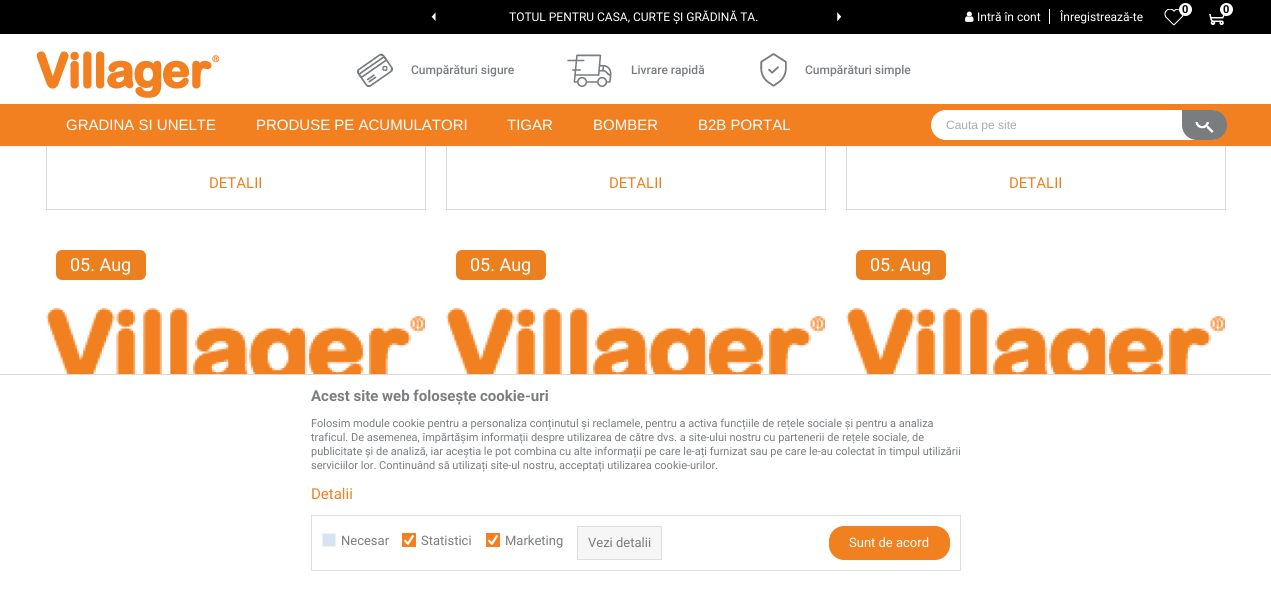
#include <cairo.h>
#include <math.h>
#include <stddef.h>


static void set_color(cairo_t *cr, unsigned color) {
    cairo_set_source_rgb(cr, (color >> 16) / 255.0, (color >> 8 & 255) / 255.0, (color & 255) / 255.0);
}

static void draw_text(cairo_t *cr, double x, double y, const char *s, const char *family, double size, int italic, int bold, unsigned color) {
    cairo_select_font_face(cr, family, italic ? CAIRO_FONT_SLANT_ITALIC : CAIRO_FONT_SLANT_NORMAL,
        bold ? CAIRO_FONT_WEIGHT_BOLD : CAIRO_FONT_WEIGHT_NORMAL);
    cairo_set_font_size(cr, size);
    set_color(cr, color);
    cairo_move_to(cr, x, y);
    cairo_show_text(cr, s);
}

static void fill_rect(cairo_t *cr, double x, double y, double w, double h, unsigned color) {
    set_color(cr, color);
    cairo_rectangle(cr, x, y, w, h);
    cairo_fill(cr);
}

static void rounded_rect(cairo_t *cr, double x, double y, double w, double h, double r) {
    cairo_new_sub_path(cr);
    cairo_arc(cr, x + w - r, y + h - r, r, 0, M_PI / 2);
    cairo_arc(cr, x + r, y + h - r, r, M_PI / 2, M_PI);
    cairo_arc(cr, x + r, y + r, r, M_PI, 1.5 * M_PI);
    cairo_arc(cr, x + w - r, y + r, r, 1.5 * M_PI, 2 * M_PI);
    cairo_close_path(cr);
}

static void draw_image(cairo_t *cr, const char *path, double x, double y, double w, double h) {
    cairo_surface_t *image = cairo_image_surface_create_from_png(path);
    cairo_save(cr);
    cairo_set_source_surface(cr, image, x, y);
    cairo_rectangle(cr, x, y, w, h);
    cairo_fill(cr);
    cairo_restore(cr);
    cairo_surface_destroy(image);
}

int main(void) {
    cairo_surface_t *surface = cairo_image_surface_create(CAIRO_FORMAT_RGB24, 1271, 593);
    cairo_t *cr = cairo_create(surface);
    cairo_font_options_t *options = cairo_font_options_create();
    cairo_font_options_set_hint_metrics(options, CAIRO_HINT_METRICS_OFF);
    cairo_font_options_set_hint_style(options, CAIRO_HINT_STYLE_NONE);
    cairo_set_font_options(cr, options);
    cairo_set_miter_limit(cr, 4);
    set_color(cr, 0xFFFFFF);
    cairo_paint(cr);
    fill_rect(cr, 0, 0, 1271, 34, 0x000000);
    draw_text(cr, 509, 21, "TOTUL PENTRU CASA, CURTE ȘI GRĂDINĂ TA.", "Roboto", 12, 0, 0, 0xFFFFFF);
    draw_image(cr, "assets/img1.png", 431, 12, 5, 9);
    draw_image(cr, "assets/img2.png", 837, 12, 4, 9);
    draw_image(cr, "assets/img3.png", 965, 11, 9, 11);
    draw_text(cr, 977, 21, "Intră în cont", "Roboto", 12, 0, 0, 0xFFFFFF);
    fill_rect(cr, 1049, 9, 1, 15, 0xFFFFFF);
    draw_text(cr, 1060, 21, "Înregistrează-te", "Roboto", 12, 0, 0, 0xFFFFFF);
    draw_image(cr, "assets/img4.png", 1164, 9, 20, 17);
    cairo_arc(cr, 1185.5, 9.5, 6.5, 0, 2 * M_PI);
    cairo_fill(cr);
    draw_text(cr, 1182, 13, "0", "Roboto", 11, 0, 1, 0x000000);
    draw_image(cr, "assets/img5.png", 1209, 14, 16, 11);
    set_color(cr, 0xFFFFFF);
    cairo_arc(cr, 1226.5, 9.5, 6.5, 0, 2 * M_PI);
    cairo_fill(cr);
    draw_text(cr, 1223, 13, "0", "Roboto", 11, 0, 1, 0x000000);
    draw_image(cr, "assets/img6.png", 36, 51, 183, 47);
    draw_image(cr, "assets/img7.png", 357, 53, 36, 34);
    draw_text(cr, 411, 74, "Cumpărături sigure", "Roboto Medium", 12, 0, 0, 0x797D80);
    draw_image(cr, "assets/img8.png", 567, 54, 45, 33);
    draw_text(cr, 631, 74, "Livrare rapidă", "Roboto Medium", 12, 0, 0, 0x797D80);
    draw_image(cr, "assets/img9.png", 760, 53, 27, 34);
    draw_text(cr, 805, 74, "Cumpărături simple", "Roboto Medium", 12, 0, 0, 0x797D80);
    fill_rect(cr, 0, 104, 1271, 42, 0xF28021);
    draw_text(cr, 66, 130, "GRADINA SI UNELTE", "Liberation Sans", 15, 0, 0, 0xFFFFFF);
    draw_text(cr, 256, 130, "PRODUSE PE ACUMULATORI", "Liberation Sans", 15, 0, 0, 0xFFFFFF);
    draw_text(cr, 507, 130, "TIGAR", "Liberation Sans", 15, 0, 0, 0xFFFFFF);
    draw_text(cr, 593, 130, "BOMBER", "Liberation Sans", 15, 0, 0, 0xFFFFFF);
    draw_text(cr, 698, 130, "B2B PORTAL", "Liberation Sans", 15, 0, 0, 0xFFFFFF);
    rounded_rect(cr, 931, 110, 295, 30, 15);
    cairo_fill(cr);
    draw_text(cr, 946, 129, "Cauta pe site", "Liberation Sans", 12, 0, 0, 0xABABAB);
    set_color(cr, 0x797D80);
    cairo_new_path(cr);
    cairo_move_to(cr, 1182, 110);
    cairo_line_to(cr, 1212, 110);
    cairo_curve_to(cr, 1220.5, 110, 1227, 116.5, 1227, 125);
    cairo_curve_to(cr, 1227, 133.5, 1220.5, 140, 1212, 140);
    cairo_line_to(cr, 1197, 140);
    cairo_curve_to(cr, 1188.5, 140, 1182, 133.5, 1182, 125);
    cairo_close_path(cr);
    cairo_fill(cr);
    draw_image(cr, "assets/img10.png", 1195, 122, 19, 11);
    fill_rect(cr, 425, 146, 1, 64, 0xD9D9D9);
    fill_rect(cr, 46, 209, 380, 1, 0xD9D9D9);
    fill_rect(cr, 46, 146, 1, 64, 0xD9D9D9);
    draw_text(cr, 209, 188, "DETALII", "Roboto", 15, 0, 0, 0xEC801F);
    fill_rect(cr, 825, 146, 1, 64, 0xD9D9D9);
    fill_rect(cr, 446, 209, 380, 1, 0xD9D9D9);
    fill_rect(cr, 446, 146, 1, 64, 0xD9D9D9);
    draw_text(cr, 609, 188, "DETALII", "Roboto", 15, 0, 0, 0xEC801F);
    fill_rect(cr, 1225, 146, 1, 64, 0xD9D9D9);
    fill_rect(cr, 846, 209, 380, 1, 0xD9D9D9);
    fill_rect(cr, 846, 146, 1, 64, 0xD9D9D9);
    draw_text(cr, 1009, 188, "DETALII", "Roboto", 15, 0, 0, 0xEC801F);
    rounded_rect(cr, 56, 250, 90, 30, 6);
    cairo_fill(cr);
    draw_text(cr, 70, 271, "05. Aug", "Roboto", 18, 0, 0, 0xFFFFFF);
    draw_image(cr, "assets/img11.png", 46, 307, 379, 67);
    set_color(cr, 0xEC801F);
    rounded_rect(cr, 456, 250, 90, 30, 6);
    cairo_fill(cr);
    draw_text(cr, 470, 271, "05. Aug", "Roboto", 18, 0, 0, 0xFFFFFF);
    draw_image(cr, "assets/img11.png", 446, 307, 379, 67);
    set_color(cr, 0xEC801F);
    rounded_rect(cr, 856, 250, 90, 30, 6);
    cairo_fill(cr);
    draw_text(cr, 870, 271, "05. Aug", "Roboto", 18, 0, 0, 0xFFFFFF);
    draw_image(cr, "assets/img11.png", 846, 307, 379, 67);
    cairo_rectangle(cr, -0.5, 374.5, 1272, 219);
    set_color(cr, 0xD9D9D9);
    cairo_set_line_width(cr, 1);
    cairo_stroke(cr);
    draw_text(cr, 311, 401, "Acest site web folosește cookie-uri", "Roboto", 15, 0, 1, 0x797D80);
    draw_text(cr, 311, 427, "Folosim module cookie pentru a personaliza conținutul și reclamele, pentru a activa funcțiile de rețele sociale și pentru a analiza", "Roboto", 11, 0, 0, 0x797D80);
    draw_text(cr, 311, 441, "traficul. De asemenea, împărtășim informații despre utilizarea de către dvs. a site-ului nostru cu partenerii de rețele sociale, de", "Roboto", 11, 0, 0, 0x797D80);
    draw_text(cr, 311, 455, "publicitate și de analiză, iar aceștia le pot combina cu alte informații pe care le-ați furnizat sau pe care le-au colectat în timpul utilizării", "Roboto", 11, 0, 0, 0x797D80);
    draw_text(cr, 311, 469, "serviciilor lor. Continuând să utilizați site-ul nostru, acceptați utilizarea cookie-urilor.", "Roboto", 11, 0, 0, 0x797D80);
    draw_text(cr, 311, 499, "Detalii", "Roboto", 15, 0, 0, 0xF28021);
    cairo_rectangle(cr, 311.5, 515.5, 649, 55);
    set_color(cr, 0xDEDEDE);
    cairo_stroke(cr);
    set_color(cr, 0xD6E3F0);
    cairo_rectangle(cr, 322.5, 533.5, 13, 13);
    cairo_fill_preserve(cr);
    set_color(cr, 0xF0F0F0);
    cairo_stroke(cr);
    draw_text(cr, 341, 545, "Necesar", "Roboto", 13, 0, 0, 0x797D80);
    fill_rect(cr, 402, 533, 14, 14, 0xF28021);
    draw_image(cr, "assets/img12.png", 404, 535, 10, 10);
    draw_text(cr, 421, 545, "Statistici", "Roboto", 13, 0, 0, 0x797D80);
    fill_rect(cr, 486, 533, 14, 14, 0xF28021);
    draw_image(cr, "assets/img12.png", 488, 535, 10, 10);
    draw_text(cr, 505, 545, "Marketing", "Roboto", 13, 0, 0, 0x797D80);
    set_color(cr, 0xF6F6F6);
    cairo_rectangle(cr, 577.5, 526.5, 84, 33);
    cairo_fill_preserve(cr);
    set_color(cr, 0xDEDEDE);
    cairo_stroke(cr);
    draw_text(cr, 588, 547, "Vezi detalii", "Roboto", 13, 0, 0, 0x797D80);
    set_color(cr, 0xF18021);
    rounded_rect(cr, 829, 526, 121, 34, 15);
    cairo_fill(cr);
    draw_text(cr, 849, 547, "Sunt de acord", "Roboto", 13, 0, 0, 0xFFFFFF);
    cairo_surface_write_to_png(surface, "output.png");
    cairo_font_options_destroy(options);
    cairo_destroy(cr);
    cairo_surface_destroy(surface);
    return 0;
}
